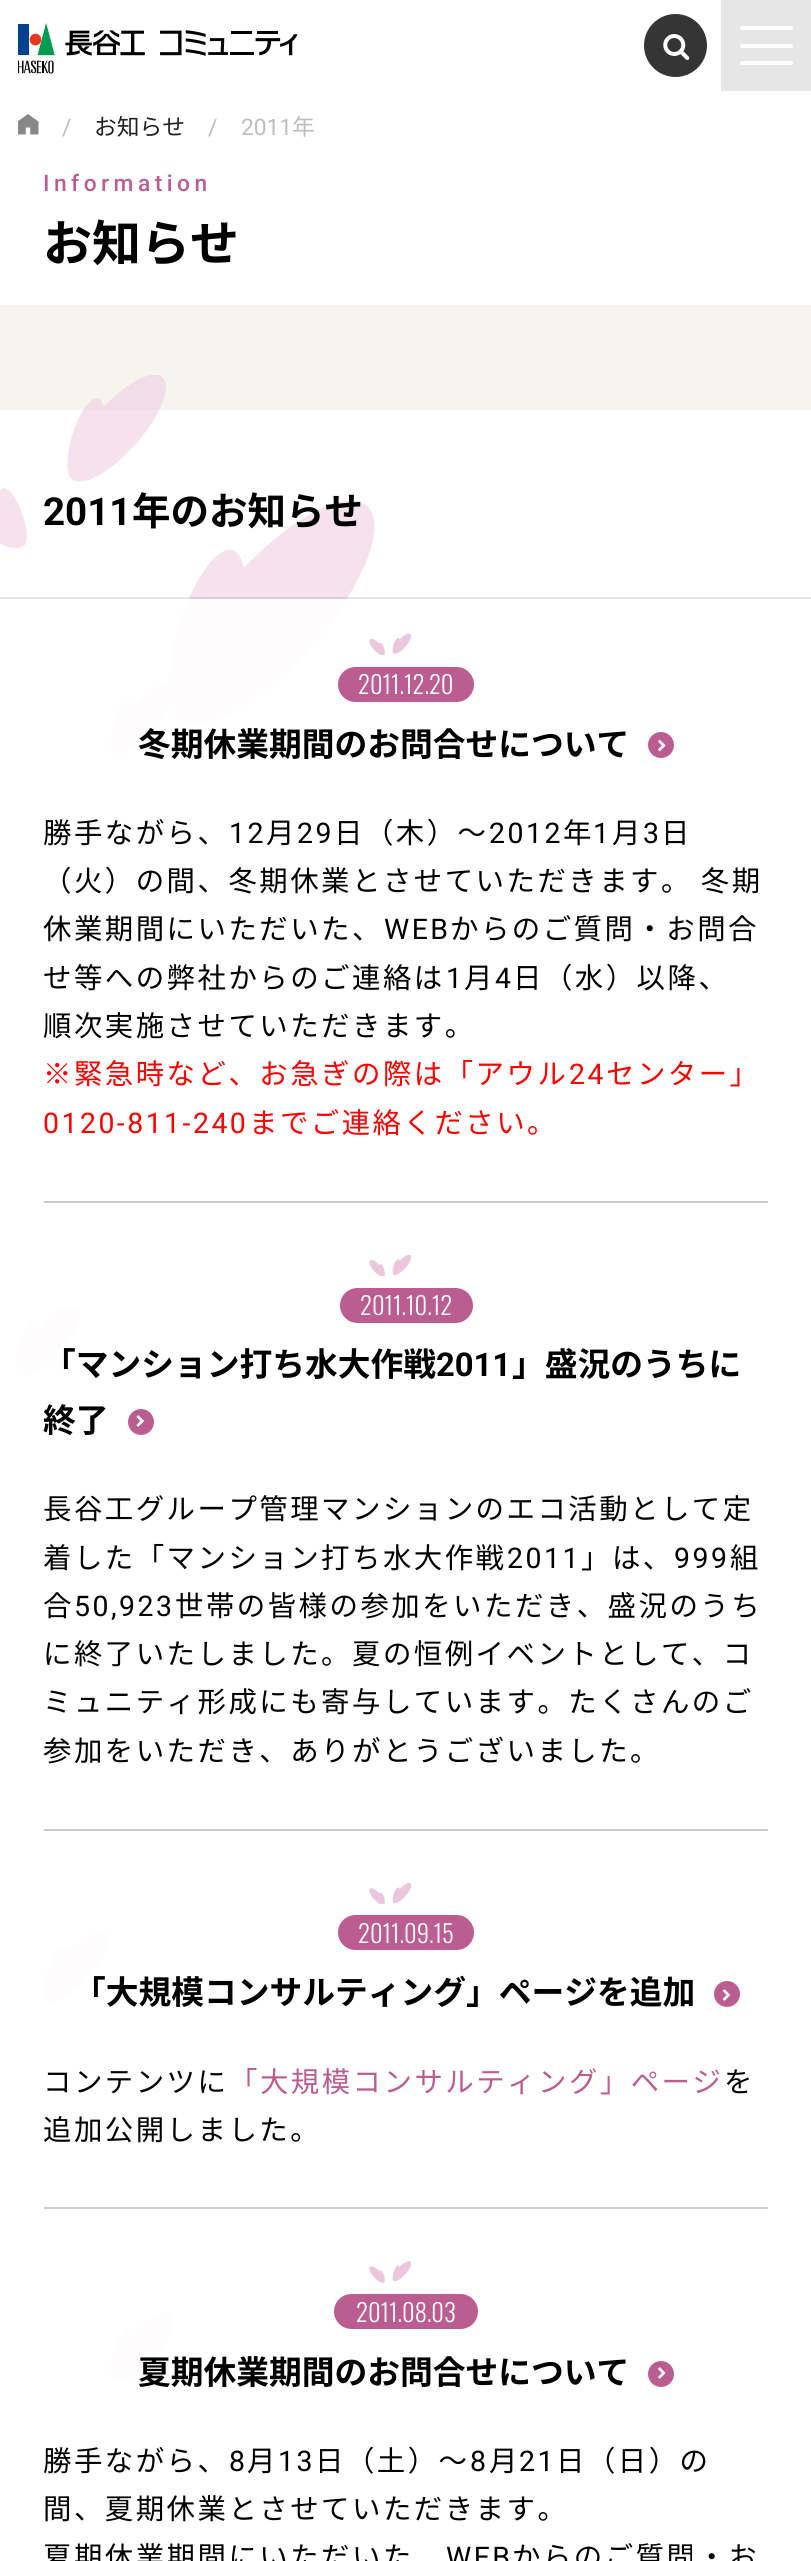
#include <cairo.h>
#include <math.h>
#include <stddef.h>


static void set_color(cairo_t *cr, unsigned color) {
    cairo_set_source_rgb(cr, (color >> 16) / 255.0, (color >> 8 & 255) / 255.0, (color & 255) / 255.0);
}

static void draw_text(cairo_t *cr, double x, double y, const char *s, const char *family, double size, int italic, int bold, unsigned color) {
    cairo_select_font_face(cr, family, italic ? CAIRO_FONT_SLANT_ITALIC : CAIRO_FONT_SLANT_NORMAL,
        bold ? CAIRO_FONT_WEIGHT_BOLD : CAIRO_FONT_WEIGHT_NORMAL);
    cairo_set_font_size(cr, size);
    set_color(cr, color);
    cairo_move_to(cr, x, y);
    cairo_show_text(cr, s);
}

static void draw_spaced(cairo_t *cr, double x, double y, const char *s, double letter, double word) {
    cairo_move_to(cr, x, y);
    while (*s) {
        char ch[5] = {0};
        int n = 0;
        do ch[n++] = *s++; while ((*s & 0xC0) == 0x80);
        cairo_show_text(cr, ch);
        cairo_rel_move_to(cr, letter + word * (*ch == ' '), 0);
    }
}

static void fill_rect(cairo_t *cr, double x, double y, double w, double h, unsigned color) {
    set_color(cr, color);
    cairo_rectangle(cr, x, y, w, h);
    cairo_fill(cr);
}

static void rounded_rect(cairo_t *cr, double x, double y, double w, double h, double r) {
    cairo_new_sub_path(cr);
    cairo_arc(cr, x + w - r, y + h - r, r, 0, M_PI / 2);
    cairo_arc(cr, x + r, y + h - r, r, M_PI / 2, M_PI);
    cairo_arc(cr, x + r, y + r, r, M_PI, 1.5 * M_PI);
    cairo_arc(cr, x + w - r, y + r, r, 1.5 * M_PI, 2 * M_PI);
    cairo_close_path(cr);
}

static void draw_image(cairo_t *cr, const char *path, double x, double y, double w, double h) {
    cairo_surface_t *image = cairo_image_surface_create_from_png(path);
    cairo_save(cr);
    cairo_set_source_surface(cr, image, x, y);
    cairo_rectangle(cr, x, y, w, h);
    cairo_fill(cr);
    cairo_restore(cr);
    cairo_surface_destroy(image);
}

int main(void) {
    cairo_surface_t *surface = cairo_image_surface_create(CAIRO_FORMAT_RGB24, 811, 2561);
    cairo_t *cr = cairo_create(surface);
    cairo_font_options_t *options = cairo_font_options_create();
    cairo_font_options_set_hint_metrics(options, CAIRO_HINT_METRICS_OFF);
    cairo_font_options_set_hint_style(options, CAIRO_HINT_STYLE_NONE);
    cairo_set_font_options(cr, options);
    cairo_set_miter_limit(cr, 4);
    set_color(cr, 0xFFFFFF);
    cairo_paint(cr);
    draw_image(cr, "assets/img1.png", 18, 23, 280, 51);
    set_color(cr, 0x353535);
    cairo_arc(cr, 675.5, 45.5, 31.5, 0, 2 * M_PI);
    cairo_fill(cr);
    draw_image(cr, "assets/img2.png", 663, 34, 27, 26);
    fill_rect(cr, 721, 0, 90, 91, 0xE6E6E6);
    set_color(cr, 0xFFFFFF);
    rounded_rect(cr, 740, 26, 53, 4, 2);
    cairo_fill(cr);
    rounded_rect(cr, 740, 44, 53, 4, 2);
    cairo_fill(cr);
    rounded_rect(cr, 740, 61, 53, 4, 2);
    cairo_fill(cr);
    fill_rect(cr, 0, 305, 811, 105, 0xF6F4EF);
    draw_image(cr, "assets/img3.png", 18, 114, 21, 21);
    draw_text(cr, 62, 135, "/", "Roboto", 22.75, 0, 0, 0xBDBDBD);
    draw_text(cr, 94, 135, "お知らせ", "Noto Sans JP", 22.75, 0, 0, 0x222222);
    draw_text(cr, 208, 135, "/", "Roboto", 22.75, 0, 0, 0xBDBDBD);
    draw_text(cr, 241, 135, "2011", "Roboto", 22.75, 0, 0, 0xBDBDBD);
    draw_text(cr, 292, 135, "年", "Noto Sans JP", 22.75, 0, 0, 0xBDBDBD);
    cairo_select_font_face(cr, "Roboto Medium", CAIRO_FONT_SLANT_NORMAL, CAIRO_FONT_WEIGHT_NORMAL);
    set_color(cr, 0xBB5D90);
    draw_spaced(cr, 43, 191, "Information", 4.5, 0);
    draw_text(cr, 43, 261, "お知らせ", "Noto Sans JP", 49, 0, 1, 0x000000);
    draw_image(cr, "assets/img4.png", 0, 375, 375, 350);
    cairo_set_source_rgba(cr, 0, 0, 0, 0.1);
    cairo_rectangle(cr, 0, 597, 811, 2);
    cairo_fill(cr);
    draw_text(cr, 43, 525, "2011", "Roboto", 38.5, 0, 1, 0x000000);
    draw_text(cr, 132, 525, "年のお知らせ", "Noto Sans JP", 38.5, 0, 1, 0x000000);
    cairo_save(cr);
    cairo_rectangle(cr, 110, 684, 65, 70);
    cairo_clip(cr);
    cairo_set_source_rgba(cr, 0.925, 0.776, 0.863, 0.5);
    cairo_new_path(cr);
    cairo_move_to(cr, 172, 686);
    cairo_curve_to(cr, 166, 680, 149, 689, 134, 705);
    cairo_curve_to(cr, 133, 704, 132, 700, 130, 700);
    cairo_curve_to(cr, 118, 699, 109, 736, 111, 746);
    cairo_curve_to(cr, 111, 748, 111, 752, 113, 753);
    cairo_line_to(cr, 116, 754);
    cairo_curve_to(cr, 136, 759, 187, 699, 172, 686);
    cairo_close_path(cr);
    cairo_fill(cr);
    cairo_restore(cr);
    cairo_save(cr);
    cairo_rectangle(cr, 16, 1306, 65, 70);
    cairo_clip(cr);
    set_color(cr, 0xF6E3EE);
    cairo_new_path(cr);
    cairo_move_to(cr, 78, 1307);
    cairo_curve_to(cr, 72, 1302, 55, 1310, 39, 1327);
    cairo_curve_to(cr, 39, 1325, 38, 1321, 36, 1321);
    cairo_curve_to(cr, 23, 1320, 15, 1357, 16, 1368);
    cairo_curve_to(cr, 16, 1369, 17, 1373, 19, 1374);
    cairo_line_to(cr, 22, 1375);
    cairo_curve_to(cr, 42, 1380, 92, 1320, 78, 1307);
    cairo_close_path(cr);
    cairo_fill(cr);
    cairo_restore(cr);
    cairo_save(cr);
    cairo_rectangle(cr, 44, 1932, 65, 70);
    cairo_clip(cr);
    set_color(cr, 0xF6E3EE);
    cairo_new_path(cr);
    cairo_move_to(cr, 106, 1934);
    cairo_curve_to(cr, 100, 1928, 83, 1937, 67, 1953);
    cairo_curve_to(cr, 67, 1951, 66, 1948, 64, 1948);
    cairo_curve_to(cr, 51, 1946, 43, 1984, 44, 1994);
    cairo_curve_to(cr, 44, 1996, 45, 1999, 47, 2000);
    cairo_line_to(cr, 50, 2002);
    cairo_curve_to(cr, 70, 2006, 120, 1947, 106, 1934);
    cairo_close_path(cr);
    cairo_fill(cr);
    cairo_restore(cr);
    cairo_save(cr);
    cairo_rectangle(cr, 110, 2312, 65, 70);
    cairo_clip(cr);
    set_color(cr, 0xF6E3EE);
    cairo_new_path(cr);
    cairo_move_to(cr, 172, 2313);
    cairo_curve_to(cr, 166, 2308, 149, 2317, 134, 2333);
    cairo_curve_to(cr, 133, 2331, 132, 2328, 130, 2327);
    cairo_curve_to(cr, 118, 2326, 109, 2363, 111, 2374);
    cairo_curve_to(cr, 111, 2375, 111, 2379, 113, 2380);
    cairo_line_to(cr, 116, 2382);
    cairo_curve_to(cr, 136, 2386, 187, 2326, 172, 2313);
    cairo_close_path(cr);
    cairo_fill(cr);
    cairo_restore(cr);
    cairo_set_source_rgba(cr, 1, 1, 1, 0.9);
    cairo_rectangle(cr, 16, 599, 331, 1783);
    cairo_fill(cr);
    draw_image(cr, "assets/img5.png", 369, 634, 42, 22);
    set_color(cr, 0xBB5D90);
    rounded_rect(cr, 338, 667, 136, 35, 17.5);
    cairo_fill(cr);
    draw_text(cr, 358, 694, "2011.12.20", "Oswald Light", 24.5, 0, 0, 0xFFFFFF);
    draw_text(cr, 138, 756, "冬期休業期間のお問合せについて", "Noto Sans JP", 32.75, 0, 1, 0x000000);
    set_color(cr, 0xBB5D90);
    cairo_new_path(cr);
    cairo_arc(cr, 661, 745, 13, 0, 2 * M_PI);
    cairo_fill(cr);
    draw_image(cr, "assets/img6.png", 658, 739, 8, 13);
    cairo_select_font_face(cr, "Noto Sans JP", CAIRO_FONT_SLANT_NORMAL, CAIRO_FONT_WEIGHT_NORMAL);
    cairo_set_font_size(cr, 28.4);
    set_color(cr, 0x000000);
    draw_spaced(cr, 43, 843, "勝手ながら、", 2.5, 0);
    cairo_select_font_face(cr, "Roboto", CAIRO_FONT_SLANT_NORMAL, CAIRO_FONT_WEIGHT_NORMAL);
    draw_spaced(cr, 229, 843, "12", 2.5, 0);
    cairo_select_font_face(cr, "Noto Sans JP", CAIRO_FONT_SLANT_NORMAL, CAIRO_FONT_WEIGHT_NORMAL);
    draw_spaced(cr, 266, 843, "月", 2.5, 0);
    cairo_select_font_face(cr, "Roboto", CAIRO_FONT_SLANT_NORMAL, CAIRO_FONT_WEIGHT_NORMAL);
    draw_spaced(cr, 297, 843, "29", 2.5, 0);
    cairo_select_font_face(cr, "Noto Sans JP", CAIRO_FONT_SLANT_NORMAL, CAIRO_FONT_WEIGHT_NORMAL);
    draw_spaced(cr, 334, 843, "日（木）～", 2.5, 0);
    cairo_select_font_face(cr, "Roboto", CAIRO_FONT_SLANT_NORMAL, CAIRO_FONT_WEIGHT_NORMAL);
    draw_spaced(cr, 489, 843, "2012", 2.5, 0);
    cairo_select_font_face(cr, "Noto Sans JP", CAIRO_FONT_SLANT_NORMAL, CAIRO_FONT_WEIGHT_NORMAL);
    draw_spaced(cr, 563, 843, "年", 2.5, 0);
    cairo_select_font_face(cr, "Roboto", CAIRO_FONT_SLANT_NORMAL, CAIRO_FONT_WEIGHT_NORMAL);
    draw_spaced(cr, 593, 843, "1", 2.5, 0);
    cairo_select_font_face(cr, "Noto Sans JP", CAIRO_FONT_SLANT_NORMAL, CAIRO_FONT_WEIGHT_NORMAL);
    draw_spaced(cr, 612, 843, "月", 2.5, 0);
    cairo_select_font_face(cr, "Roboto", CAIRO_FONT_SLANT_NORMAL, CAIRO_FONT_WEIGHT_NORMAL);
    draw_spaced(cr, 643, 843, "3", 2.5, 0);
    cairo_select_font_face(cr, "Noto Sans JP", CAIRO_FONT_SLANT_NORMAL, CAIRO_FONT_WEIGHT_NORMAL);
    draw_spaced(cr, 661, 843, "日", 2.5, 0);
    draw_spaced(cr, 43, 891, "（火）の間、冬期休業とさせていただきます。 冬期", 2.5, 0);
    draw_spaced(cr, 43, 939, "休業期間にいただいた、", 2.5, 0);
    cairo_select_font_face(cr, "Roboto", CAIRO_FONT_SLANT_NORMAL, CAIRO_FONT_WEIGHT_NORMAL);
    draw_spaced(cr, 384, 939, "WEB", 2.5, 0);
    cairo_select_font_face(cr, "Noto Sans JP", CAIRO_FONT_SLANT_NORMAL, CAIRO_FONT_WEIGHT_NORMAL);
    draw_spaced(cr, 450, 939, "からのご質問・お問合", 2.5, 0);
    draw_spaced(cr, 43, 988, "せ等への弊社からのご連絡は", 2.5, 0);
    cairo_select_font_face(cr, "Roboto", CAIRO_FONT_SLANT_NORMAL, CAIRO_FONT_WEIGHT_NORMAL);
    draw_spaced(cr, 446, 988, "1", 2.5, 0);
    cairo_select_font_face(cr, "Noto Sans JP", CAIRO_FONT_SLANT_NORMAL, CAIRO_FONT_WEIGHT_NORMAL);
    draw_spaced(cr, 464, 988, "月", 2.5, 0);
    cairo_select_font_face(cr, "Roboto", CAIRO_FONT_SLANT_NORMAL, CAIRO_FONT_WEIGHT_NORMAL);
    draw_spaced(cr, 495, 988, "4", 2.5, 0);
    cairo_select_font_face(cr, "Noto Sans JP", CAIRO_FONT_SLANT_NORMAL, CAIRO_FONT_WEIGHT_NORMAL);
    draw_spaced(cr, 513, 988, "日（水）以降、", 2.5, 0);
    draw_spaced(cr, 43, 1036, "順次実施させていただきます。", 2.5, 0);
    set_color(cr, 0xFF0000);
    draw_spaced(cr, 43, 1084, "※緊急時など、お急ぎの際は「アウル", 2.5, 0);
    cairo_select_font_face(cr, "Roboto", CAIRO_FONT_SLANT_NORMAL, CAIRO_FONT_WEIGHT_NORMAL);
    draw_spaced(cr, 569, 1084, "24", 2.5, 0);
    cairo_select_font_face(cr, "Noto Sans JP", CAIRO_FONT_SLANT_NORMAL, CAIRO_FONT_WEIGHT_NORMAL);
    draw_spaced(cr, 606, 1084, "センター」", 2.5, 0);
    cairo_select_font_face(cr, "Roboto", CAIRO_FONT_SLANT_NORMAL, CAIRO_FONT_WEIGHT_NORMAL);
    draw_spaced(cr, 43, 1133, "0120-811-240", 2.5, 0);
    cairo_select_font_face(cr, "Noto Sans JP", CAIRO_FONT_SLANT_NORMAL, CAIRO_FONT_WEIGHT_NORMAL);
    draw_spaced(cr, 249, 1133, "までご連絡ください。", 2.5, 0);
    fill_rect(cr, 44, 1201, 724, 2, 0xCCCCCC);
    draw_image(cr, "assets/img7.png", 369, 1255, 42, 21);
    set_color(cr, 0xBB5D90);
    rounded_rect(cr, 340, 1288, 133, 35, 17.5);
    cairo_fill(cr);
    draw_text(cr, 360, 1315, "2011.10.12", "Oswald Light", 24.5, 0, 0, 0xFFFFFF);
    draw_text(cr, 43, 1376, "「マンション打ち水大作戦", "Noto Sans JP", 32.75, 0, 1, 0x000000);
    draw_text(cr, 436, 1376, "2011", "Roboto", 32.75, 0, 1, 0x000000);
    draw_text(cr, 512, 1376, "」盛況のうちに", "Noto Sans JP", 32.75, 0, 1, 0x000000);
    draw_text(cr, 43, 1432, "終了", "Noto Sans JP", 32.75, 0, 1, 0x000000);
    set_color(cr, 0xBB5D90);
    cairo_new_path(cr);
    cairo_arc(cr, 141, 1422, 13, 0, 2 * M_PI);
    cairo_fill(cr);
    draw_image(cr, "assets/img8.png", 136, 1415, 8, 12);
    cairo_select_font_face(cr, "Noto Sans JP", CAIRO_FONT_SLANT_NORMAL, CAIRO_FONT_WEIGHT_NORMAL);
    cairo_set_font_size(cr, 28.4);
    set_color(cr, 0x000000);
    draw_spaced(cr, 43, 1519, "長谷工グループ管理マンションのエコ活動として定", 2.5, 0);
    draw_spaced(cr, 43, 1568, "着した「マンション打ち水大作戦", 2.5, 0);
    cairo_select_font_face(cr, "Roboto", CAIRO_FONT_SLANT_NORMAL, CAIRO_FONT_WEIGHT_NORMAL);
    draw_spaced(cr, 507, 1568, "2011", 2.5, 0);
    cairo_select_font_face(cr, "Noto Sans JP", CAIRO_FONT_SLANT_NORMAL, CAIRO_FONT_WEIGHT_NORMAL);
    draw_spaced(cr, 581, 1568, "」は、", 2.5, 0);
    cairo_select_font_face(cr, "Roboto", CAIRO_FONT_SLANT_NORMAL, CAIRO_FONT_WEIGHT_NORMAL);
    draw_spaced(cr, 674, 1568, "999", 2.5, 0);
    cairo_select_font_face(cr, "Noto Sans JP", CAIRO_FONT_SLANT_NORMAL, CAIRO_FONT_WEIGHT_NORMAL);
    draw_spaced(cr, 730, 1568, "組", 2.5, 0);
    draw_spaced(cr, 43, 1616, "合", 2.5, 0);
    cairo_select_font_face(cr, "Roboto", CAIRO_FONT_SLANT_NORMAL, CAIRO_FONT_WEIGHT_NORMAL);
    draw_spaced(cr, 74, 1616, "50,923", 2.5, 0);
    cairo_select_font_face(cr, "Noto Sans JP", CAIRO_FONT_SLANT_NORMAL, CAIRO_FONT_WEIGHT_NORMAL);
    draw_spaced(cr, 175, 1616, "世帯の皆様の参加をいただき、盛況のうち", 2.5, 0);
    draw_spaced(cr, 43, 1664, "に終了いたしました。夏の恒例イベントとして、コ", 2.5, 0);
    draw_spaced(cr, 43, 1712, "ミュニティ形成にも寄与しています。たくさんのご", 2.5, 0);
    draw_spaced(cr, 43, 1761, "参加をいただき、ありがとうございました。", 2.5, 0);
    fill_rect(cr, 44, 1829, 724, 2, 0xCCCCCC);
    draw_image(cr, "assets/img9.png", 369, 1883, 42, 21);
    set_color(cr, 0xBB5D90);
    rounded_rect(cr, 338, 1915, 136, 35, 17.5);
    cairo_fill(cr);
    draw_text(cr, 358, 1943, "2011.09.15", "Oswald Light", 24.5, 0, 0, 0xFFFFFF);
    draw_text(cr, 73, 2004, "「大規模コンサルティング」ページを追加", "Noto Sans JP", 32.75, 0, 1, 0x000000);
    set_color(cr, 0xBB5D90);
    cairo_new_path(cr);
    cairo_arc(cr, 727, 1994, 13, 0, 2 * M_PI);
    cairo_fill(cr);
    draw_image(cr, "assets/img10.png", 722, 1989, 9, 12);
    cairo_select_font_face(cr, "Noto Sans JP", CAIRO_FONT_SLANT_NORMAL, CAIRO_FONT_WEIGHT_NORMAL);
    cairo_set_font_size(cr, 28.4);
    set_color(cr, 0x000000);
    draw_spaced(cr, 43, 2092, "コンテンツに", 2.5, 0);
    set_color(cr, 0xBB5D90);
    draw_spaced(cr, 229, 2092, "「大規模コンサルティング」ページ", 2.5, 0);
    set_color(cr, 0x000000);
    draw_spaced(cr, 724, 2092, "を", 2.5, 0);
    draw_spaced(cr, 43, 2140, "追加公開しました。", 2.5, 0);
    fill_rect(cr, 44, 2207, 724, 2, 0xCCCCCC);
    draw_image(cr, "assets/img11.png", 369, 2261, 42, 22);
    set_color(cr, 0xBB5D90);
    rounded_rect(cr, 334, 2294, 144, 35, 17.5);
    cairo_fill(cr);
    draw_text(cr, 356, 2322, "2011.08.03", "Oswald Light", 24.5, 0, 0, 0xFFFFFF);
    draw_text(cr, 138, 2384, "夏期休業期間のお問合せについて", "Noto Sans JP", 32.75, 0, 1, 0x000000);
    set_color(cr, 0xBB5D90);
    cairo_new_path(cr);
    cairo_arc(cr, 661, 2374, 13, 0, 2 * M_PI);
    cairo_fill(cr);
    draw_image(cr, "assets/img12.png", 658, 2367, 8, 12);
    cairo_select_font_face(cr, "Noto Sans JP", CAIRO_FONT_SLANT_NORMAL, CAIRO_FONT_WEIGHT_NORMAL);
    cairo_set_font_size(cr, 28.4);
    set_color(cr, 0x000000);
    draw_spaced(cr, 43, 2471, "勝手ながら、", 2.5, 0);
    cairo_select_font_face(cr, "Roboto", CAIRO_FONT_SLANT_NORMAL, CAIRO_FONT_WEIGHT_NORMAL);
    draw_spaced(cr, 229, 2471, "8", 2.5, 0);
    cairo_select_font_face(cr, "Noto Sans JP", CAIRO_FONT_SLANT_NORMAL, CAIRO_FONT_WEIGHT_NORMAL);
    draw_spaced(cr, 247, 2471, "月", 2.5, 0);
    cairo_select_font_face(cr, "Roboto", CAIRO_FONT_SLANT_NORMAL, CAIRO_FONT_WEIGHT_NORMAL);
    draw_spaced(cr, 278, 2471, "13", 2.5, 0);
    cairo_select_font_face(cr, "Noto Sans JP", CAIRO_FONT_SLANT_NORMAL, CAIRO_FONT_WEIGHT_NORMAL);
    draw_spaced(cr, 315, 2471, "日（土）～", 2.5, 0);
    cairo_select_font_face(cr, "Roboto", CAIRO_FONT_SLANT_NORMAL, CAIRO_FONT_WEIGHT_NORMAL);
    draw_spaced(cr, 470, 2471, "8", 2.5, 0);
    cairo_select_font_face(cr, "Noto Sans JP", CAIRO_FONT_SLANT_NORMAL, CAIRO_FONT_WEIGHT_NORMAL);
    draw_spaced(cr, 489, 2471, "月", 2.5, 0);
    cairo_select_font_face(cr, "Roboto", CAIRO_FONT_SLANT_NORMAL, CAIRO_FONT_WEIGHT_NORMAL);
    draw_spaced(cr, 519, 2471, "21", 2.5, 0);
    cairo_select_font_face(cr, "Noto Sans JP", CAIRO_FONT_SLANT_NORMAL, CAIRO_FONT_WEIGHT_NORMAL);
    draw_spaced(cr, 556, 2471, "日（日）の", 2.5, 0);
    draw_spaced(cr, 43, 2519, "間、夏期休業とさせていただきます。", 2.5, 0);
    draw_spaced(cr, 43, 2567, "夏期休業期間にいただいた", 2.5, 0);
    cairo_select_font_face(cr, "Roboto", CAIRO_FONT_SLANT_NORMAL, CAIRO_FONT_WEIGHT_NORMAL);
    draw_spaced(cr, 446, 2567, "WEB", 2.5, 0);
    cairo_select_font_face(cr, "Noto Sans JP", CAIRO_FONT_SLANT_NORMAL, CAIRO_FONT_WEIGHT_NORMAL);
    draw_spaced(cr, 512, 2567, "からのご質問・お", 2.5, 0);
    cairo_surface_write_to_png(surface, "output.png");
    cairo_font_options_destroy(options);
    cairo_destroy(cr);
    cairo_surface_destroy(surface);
    return 0;
}
